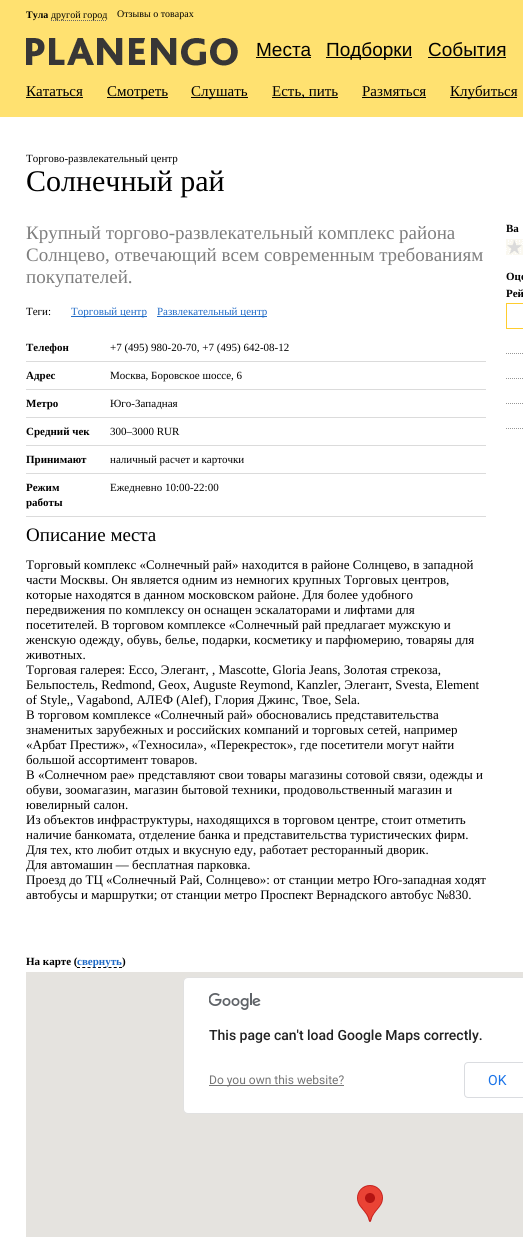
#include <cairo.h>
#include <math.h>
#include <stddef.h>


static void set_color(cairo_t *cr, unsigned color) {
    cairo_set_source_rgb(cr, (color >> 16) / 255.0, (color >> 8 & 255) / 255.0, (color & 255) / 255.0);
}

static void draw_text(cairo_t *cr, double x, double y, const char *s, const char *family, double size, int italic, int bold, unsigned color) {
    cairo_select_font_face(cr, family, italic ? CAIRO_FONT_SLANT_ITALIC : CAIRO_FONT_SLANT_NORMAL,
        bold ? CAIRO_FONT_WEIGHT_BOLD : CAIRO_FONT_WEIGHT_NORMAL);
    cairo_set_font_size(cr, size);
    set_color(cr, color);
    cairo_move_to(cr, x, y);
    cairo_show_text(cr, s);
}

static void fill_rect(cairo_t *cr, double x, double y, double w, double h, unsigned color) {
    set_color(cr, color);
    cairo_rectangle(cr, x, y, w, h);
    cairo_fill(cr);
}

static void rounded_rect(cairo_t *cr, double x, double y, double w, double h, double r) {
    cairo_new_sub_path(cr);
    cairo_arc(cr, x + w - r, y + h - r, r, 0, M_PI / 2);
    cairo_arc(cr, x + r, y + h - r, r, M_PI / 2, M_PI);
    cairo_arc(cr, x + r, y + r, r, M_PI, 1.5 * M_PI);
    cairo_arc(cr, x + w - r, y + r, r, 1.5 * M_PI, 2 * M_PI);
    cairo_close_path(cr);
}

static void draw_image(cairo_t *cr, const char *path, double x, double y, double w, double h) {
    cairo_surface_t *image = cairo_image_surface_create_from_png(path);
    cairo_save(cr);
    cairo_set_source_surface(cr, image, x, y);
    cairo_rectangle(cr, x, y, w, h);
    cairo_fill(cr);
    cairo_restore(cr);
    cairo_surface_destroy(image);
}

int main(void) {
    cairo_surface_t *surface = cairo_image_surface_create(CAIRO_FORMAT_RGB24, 523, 1237);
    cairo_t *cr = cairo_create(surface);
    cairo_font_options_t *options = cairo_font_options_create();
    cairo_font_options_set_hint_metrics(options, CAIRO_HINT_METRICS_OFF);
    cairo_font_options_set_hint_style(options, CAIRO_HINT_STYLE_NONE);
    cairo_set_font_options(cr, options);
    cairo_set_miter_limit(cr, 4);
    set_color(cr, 0xFFFFFF);
    cairo_paint(cr);
    fill_rect(cr, 0, 0, 523, 117, 0xFFE170);
    draw_text(cr, 26, 18, "Тула", "Liberation Serif", 10, 0, 1, 0x000000);
    cairo_new_path(cr);
    cairo_move_to(cr, 51, 20.5);
    cairo_line_to(cr, 107, 20.5);
    set_color(cr, 0x666666);
    cairo_set_line_width(cr, 1);
    cairo_set_dash(cr, (double[]){1, 1}, 2, 0);
    cairo_stroke(cr);
    draw_text(cr, 51, 18, "другой город", "Liberation Serif", 10, 0, 0, 0x000000);
    draw_text(cr, 117, 17, "Отзывы о товарах", "Liberation Serif", 10, 0, 0, 0x000000);
    draw_image(cr, "assets/img1.png", 26, 38, 212, 28);
    draw_text(cr, 256, 56, "Места", "Liberation Sans", 19, 0, 0, 0x000000);
    fill_rect(cr, 256, 57, 55, 1, 0x000000);
    fill_rect(cr, 326, 57, 86, 1, 0x000000);
    draw_text(cr, 326, 56, "Подборки", "Liberation Sans", 19, 0, 0, 0x000000);
    draw_text(cr, 428, 56, "События", "Liberation Sans", 19, 0, 0, 0x000000);
    fill_rect(cr, 428, 57, 78, 1, 0x000000);
    draw_text(cr, 26, 96, "Кататься", "Liberation Serif", 15, 0, 0, 0x000000);
    fill_rect(cr, 26, 97, 57, 1, 0x000000);
    fill_rect(cr, 107, 97, 61, 1, 0x000000);
    draw_text(cr, 107, 96, "Смотреть", "Liberation Serif", 15, 0, 0, 0x000000);
    fill_rect(cr, 191, 97, 57, 1, 0x000000);
    draw_text(cr, 191, 96, "Слушать", "Liberation Serif", 15, 0, 0, 0x000000);
    fill_rect(cr, 272, 97, 66, 1, 0x000000);
    draw_text(cr, 272, 96, "Есть, пить", "Liberation Serif", 15, 0, 0, 0x000000);
    draw_text(cr, 362, 96, "Размяться", "Liberation Serif", 15, 0, 0, 0x000000);
    fill_rect(cr, 362, 97, 64, 1, 0x000000);
    fill_rect(cr, 450, 97, 67, 1, 0x000000);
    draw_text(cr, 450, 96, "Клубиться", "Liberation Serif", 15, 0, 0, 0x000000);
    draw_text(cr, 26, 162, "Торгово-развлекательный центр", "Liberation Serif", 11, 0, 0, 0x000000);
    draw_text(cr, 26, 191, "Солнечный рай", "Liberation Serif", 30, 0, 0, 0x000000);
    draw_text(cr, 26, 239, "Крупный торгово-развлекательный комплекс района", "Liberation Serif", 19, 0, 0, 0x7E7E7E);
    draw_text(cr, 26, 261, "Солнцево, отвечающий всем современным требованиям", "Liberation Serif", 19, 0, 0, 0x7E7E7E);
    draw_text(cr, 26, 283, "покупателей.", "Liberation Serif", 19, 0, 0, 0x7E7E7E);
    draw_text(cr, 26, 315, "Теги:", "Liberation Serif", 11, 0, 0, 0x000000);
    fill_rect(cr, 71, 316, 76, 1, 0x206BC7);
    draw_text(cr, 71, 315, "Торговый центр", "Liberation Serif", 11, 0, 0, 0x206BC7);
    fill_rect(cr, 157, 316, 110, 1, 0x206BC7);
    draw_text(cr, 157, 315, "Развлекательный центр", "Liberation Serif", 11, 0, 0, 0x206BC7);
    fill_rect(cr, 26, 361, 460, 1, 0xDBDBDB);
    draw_text(cr, 26, 351, "Телефон", "Liberation Serif", 11, 0, 1, 0x000000);
    draw_text(cr, 110, 351, "+7 (495) 980-20-70, +7 (495) 642-08-12", "Liberation Serif", 11, 0, 0, 0x000000);
    fill_rect(cr, 26, 389, 460, 1, 0xDBDBDB);
    draw_text(cr, 26, 379, "Адрес", "Liberation Serif", 11, 0, 1, 0x000000);
    draw_text(cr, 110, 379, "Москва, Боровское шоссе, 6", "Liberation Serif", 11, 0, 0, 0x000000);
    fill_rect(cr, 26, 417, 460, 1, 0xDBDBDB);
    draw_text(cr, 26, 407, "Метро", "Liberation Serif", 11, 0, 1, 0x000000);
    draw_text(cr, 110, 407, "Юго-Западная", "Liberation Serif", 11, 0, 0, 0x000000);
    fill_rect(cr, 26, 445, 460, 1, 0xDBDBDB);
    draw_text(cr, 26, 435, "Средний чек", "Liberation Serif", 11, 0, 1, 0x000000);
    draw_text(cr, 110, 435, "300–3000 RUR", "Liberation Serif", 11, 0, 0, 0x000000);
    fill_rect(cr, 26, 473, 460, 1, 0xDBDBDB);
    draw_text(cr, 26, 463, "Принимают", "Liberation Serif", 11, 0, 1, 0x000000);
    draw_text(cr, 110, 463, "наличный расчет и карточки", "Liberation Serif", 11, 0, 0, 0x000000);
    fill_rect(cr, 26, 516, 460, 1, 0xDBDBDB);
    draw_text(cr, 26, 491, "Режим", "Liberation Serif", 11, 0, 1, 0x000000);
    draw_text(cr, 26, 506, "работы", "Liberation Serif", 11, 0, 1, 0x000000);
    draw_text(cr, 110, 491, "Ежедневно 10:00-22:00", "Liberation Serif", 11, 0, 0, 0x000000);
    draw_text(cr, 26, 541, "Описание места", "Liberation Serif", 19, 0, 0, 0x000000);
    draw_text(cr, 26, 569, "Торговый комплекс «Солнечный рай» находится в районе Солнцево, в западной", "Liberation Serif", 13, 0, 0, 0x000000);
    draw_text(cr, 26, 584, "части Москвы. Он является одним из немногих крупных Торговых центров,", "Liberation Serif", 13, 0, 0, 0x000000);
    draw_text(cr, 26, 599, "которые находятся в данном московском районе. Для более удобного", "Liberation Serif", 13, 0, 0, 0x000000);
    draw_text(cr, 26, 614, "передвижения по комплексу он оснащен эскалаторами и лифтами для", "Liberation Serif", 13, 0, 0, 0x000000);
    draw_text(cr, 26, 629, "посетителей. В торговом комплексе «Солнечный рай предлагает мужскую и", "Liberation Serif", 13, 0, 0, 0x000000);
    draw_text(cr, 26, 644, "женскую одежду, обувь, белье, подарки, косметику и парфюмерию, товаряы для", "Liberation Serif", 13, 0, 0, 0x000000);
    draw_text(cr, 26, 659, "животных.", "Liberation Serif", 13, 0, 0, 0x000000);
    draw_text(cr, 26, 674, "Торговая галерея: Ecco, Элегант, , Mascotte, Gloria Jeans, Золотая стрекоза,", "Liberation Serif", 13, 0, 0, 0x000000);
    draw_text(cr, 26, 689, "Бельпостель, Redmond, Geox, Auguste Reymond, Kanzler, Элегант, Svesta, Element", "Liberation Serif", 13, 0, 0, 0x000000);
    draw_text(cr, 26, 704, "of Style,, Vagabond, АЛЕФ (Alef), Глория Джинс, Твое, Sela.", "Liberation Serif", 13, 0, 0, 0x000000);
    draw_text(cr, 26, 719, "В торговом комплексе «Солнечный рай» обосновались представительства", "Liberation Serif", 13, 0, 0, 0x000000);
    draw_text(cr, 26, 734, "знаменитых зарубежных и российских компаний и торговых сетей, например", "Liberation Serif", 13, 0, 0, 0x000000);
    draw_text(cr, 26, 749, "«Арбат Престиж», «Техносила», «Перекресток», где посетители могут найти", "Liberation Serif", 13, 0, 0, 0x000000);
    draw_text(cr, 26, 764, "большой ассортимент товаров.", "Liberation Serif", 13, 0, 0, 0x000000);
    draw_text(cr, 26, 779, "В «Солнечном рае» представляют свои товары магазины сотовой связи, одежды и", "Liberation Serif", 13, 0, 0, 0x000000);
    draw_text(cr, 26, 794, "обуви, зоомагазин, магазин бытовой техники, продовольственный магазин и", "Liberation Serif", 13, 0, 0, 0x000000);
    draw_text(cr, 26, 809, "ювелирный салон.", "Liberation Serif", 13, 0, 0, 0x000000);
    draw_text(cr, 26, 824, "Из объектов инфраструктуры, находящихся в торговом центре, стоит отметить", "Liberation Serif", 13, 0, 0, 0x000000);
    draw_text(cr, 26, 839, "наличие банкомата, отделение банка и представительства туристических фирм.", "Liberation Serif", 13, 0, 0, 0x000000);
    draw_text(cr, 26, 854, "Для тех, кто любит отдых и вкусную еду, работает ресторанный дворик.", "Liberation Serif", 13, 0, 0, 0x000000);
    draw_text(cr, 26, 869, "Для автомашин — бесплатная парковка.", "Liberation Serif", 13, 0, 0, 0x000000);
    draw_text(cr, 26, 884, "Проезд до ТЦ «Солнечный Рай, Солнцево»: от станции метро Юго-западная ходят", "Liberation Serif", 13, 0, 0, 0x000000);
    draw_text(cr, 26, 899, "автобусы и маршрутки; от станции метро Проспект Вернадского автобус №830.", "Liberation Serif", 13, 0, 0, 0x000000);
    draw_text(cr, 506, 232, "Ва", "Liberation Serif", 11, 0, 1, 0x000000);
    draw_image(cr, "assets/img2.png", 506, 239, 17, 16);
    draw_text(cr, 506, 280, "Оце", "Liberation Serif", 11, 0, 1, 0x000000);
    draw_text(cr, 506, 297, "Рей", "Liberation Serif", 11, 0, 1, 0x000000);
    cairo_rectangle(cr, 506.5, 303.5, 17, 25);
    set_color(cr, 0xFFCD2E);
    cairo_set_dash(cr, NULL, 0, 0);
    cairo_stroke(cr);
    cairo_new_path(cr);
    cairo_move_to(cr, 506, 353.5);
    cairo_line_to(cr, 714, 353.5);
    cairo_move_to(cr, 506, 378.5);
    cairo_line_to(cr, 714, 378.5);
    cairo_move_to(cr, 506, 403.5);
    cairo_line_to(cr, 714, 403.5);
    set_color(cr, 0x969696);
    cairo_set_dash(cr, (double[]){1, 1}, 2, 0);
    cairo_stroke(cr);
    cairo_new_path(cr);
    cairo_move_to(cr, 506, 428.5);
    cairo_line_to(cr, 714, 428.5);
    cairo_stroke(cr);
    draw_text(cr, 26, 965, "На карте (", "Liberation Serif", 11, 0, 1, 0x000000);
    cairo_new_path(cr);
    cairo_move_to(cr, 77, 967.5);
    cairo_line_to(cr, 122, 967.5);
    cairo_set_dash(cr, (double[]){3, 2.25}, 2, 0);
    cairo_stroke(cr);
    draw_text(cr, 77, 965, "свернуть", "Liberation Serif", 11, 0, 1, 0x206BC7);
    draw_text(cr, 122, 965, ")", "Liberation Serif", 11, 0, 1, 0x000000);
    fill_rect(cr, 26, 972, 497, 265, 0xE5E3DF);
    draw_image(cr, "assets/img3.png", 357, 1185, 26, 37);
    set_color(cr, 0xFFFFFF);
    rounded_rect(cr, 183, 977, 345, 137, 5);
    cairo_fill(cr);
    rounded_rect(cr, 183.5, 977.5, 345, 136, 4.5);
    cairo_set_source_rgba(cr, 0, 0, 0, 0.12);
    cairo_set_dash(cr, NULL, 0, 0);
    cairo_stroke(cr);
    draw_image(cr, "assets/img4.png", 209, 993, 52, 17);
    draw_text(cr, 209, 1040, "This page can't load Google Maps correctly.", "Roboto Medium", 14, 0, 0, 0x212121);
    fill_rect(cr, 209, 1085, 135, 1, 0x757575);
    draw_text(cr, 209, 1084, "Do you own this website?", "Roboto", 12, 0, 0, 0x757575);
    rounded_rect(cr, 464.5, 1062.5, 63, 35, 3.5);
    set_color(cr, 0xDADCE0);
    cairo_stroke(cr);
    draw_text(cr, 488, 1085, "OK", "Roboto", 14, 0, 0, 0x1A73E8);
    cairo_surface_write_to_png(surface, "output.png");
    cairo_font_options_destroy(options);
    cairo_destroy(cr);
    cairo_surface_destroy(surface);
    return 0;
}
